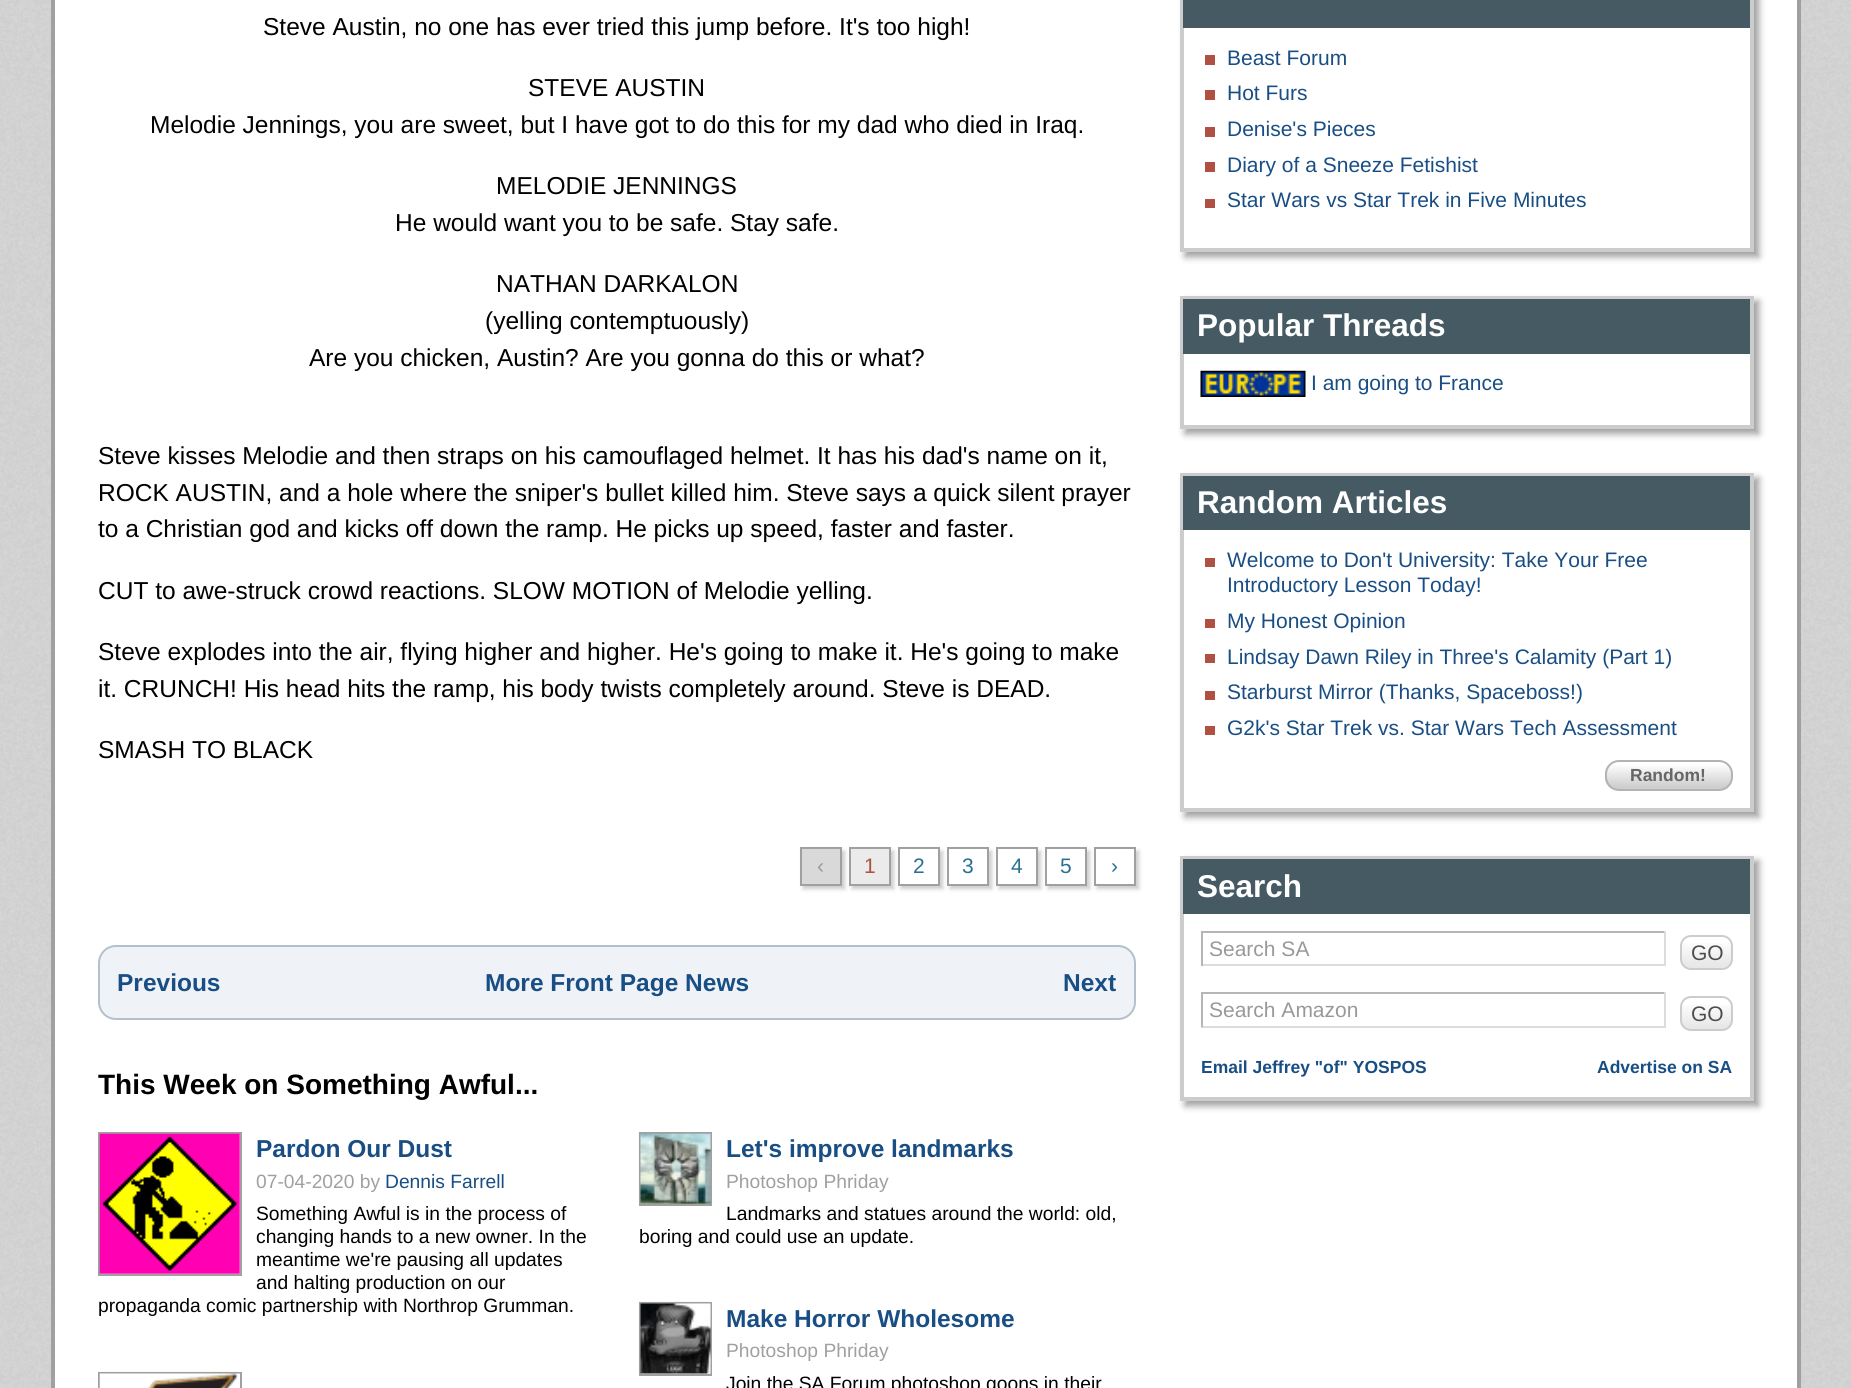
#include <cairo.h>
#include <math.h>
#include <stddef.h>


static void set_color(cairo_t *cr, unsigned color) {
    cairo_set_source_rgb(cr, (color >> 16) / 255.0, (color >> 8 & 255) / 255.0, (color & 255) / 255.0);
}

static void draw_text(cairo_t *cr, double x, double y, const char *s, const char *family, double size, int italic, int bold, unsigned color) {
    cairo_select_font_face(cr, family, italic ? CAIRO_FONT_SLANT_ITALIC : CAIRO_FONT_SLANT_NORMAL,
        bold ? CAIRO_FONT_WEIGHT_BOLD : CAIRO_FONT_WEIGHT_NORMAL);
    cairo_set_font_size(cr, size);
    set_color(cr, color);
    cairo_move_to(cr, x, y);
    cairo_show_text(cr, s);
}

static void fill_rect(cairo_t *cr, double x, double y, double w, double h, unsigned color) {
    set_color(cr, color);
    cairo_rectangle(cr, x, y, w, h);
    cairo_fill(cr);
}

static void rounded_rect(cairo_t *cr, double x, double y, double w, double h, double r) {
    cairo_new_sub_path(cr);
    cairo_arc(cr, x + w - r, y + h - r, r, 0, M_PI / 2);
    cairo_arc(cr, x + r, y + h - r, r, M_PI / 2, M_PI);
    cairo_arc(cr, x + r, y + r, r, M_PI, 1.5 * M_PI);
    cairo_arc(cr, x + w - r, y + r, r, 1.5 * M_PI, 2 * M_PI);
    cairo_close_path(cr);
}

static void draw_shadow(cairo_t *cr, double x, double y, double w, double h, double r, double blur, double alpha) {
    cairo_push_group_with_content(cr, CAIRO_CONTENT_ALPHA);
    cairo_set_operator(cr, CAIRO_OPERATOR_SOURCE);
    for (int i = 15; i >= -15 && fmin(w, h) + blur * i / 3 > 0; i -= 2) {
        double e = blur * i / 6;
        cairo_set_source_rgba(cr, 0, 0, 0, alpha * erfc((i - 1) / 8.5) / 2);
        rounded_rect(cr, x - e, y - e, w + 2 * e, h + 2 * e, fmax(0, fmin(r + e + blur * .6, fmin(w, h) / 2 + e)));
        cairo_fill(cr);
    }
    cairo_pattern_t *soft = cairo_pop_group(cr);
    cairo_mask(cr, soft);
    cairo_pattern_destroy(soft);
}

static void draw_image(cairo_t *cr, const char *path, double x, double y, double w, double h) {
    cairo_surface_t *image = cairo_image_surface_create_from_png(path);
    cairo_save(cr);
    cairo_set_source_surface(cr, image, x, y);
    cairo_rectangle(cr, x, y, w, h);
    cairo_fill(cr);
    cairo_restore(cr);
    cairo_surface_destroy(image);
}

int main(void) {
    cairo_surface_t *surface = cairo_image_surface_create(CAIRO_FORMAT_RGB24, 1851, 1388);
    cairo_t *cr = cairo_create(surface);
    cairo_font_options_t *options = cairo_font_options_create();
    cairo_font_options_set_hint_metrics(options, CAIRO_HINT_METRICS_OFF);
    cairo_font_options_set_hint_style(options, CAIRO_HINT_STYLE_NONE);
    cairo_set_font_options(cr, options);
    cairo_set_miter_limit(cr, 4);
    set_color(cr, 0xFFFFFF);
    cairo_paint(cr);
    draw_image(cr, "assets/img1.png", 0, 0, 1851, 1388);
    fill_rect(cr, 55, 0, 1742, 1388, 0xFFFFFF);
    fill_rect(cr, 1797, 0, 4, 1388, 0xA0A0A0);
    fill_rect(cr, 51, 0, 4, 1388, 0xA0A0A0);
    draw_text(cr, 263, 35, "Steve Austin, no one has ever tried this jump before. It's too high!", "Liberation Sans", 24.5, 0, 0, 0x000000);
    draw_text(cr, 528, 96, "STEVE AUSTIN", "Liberation Sans", 24.5, 0, 0, 0x000000);
    draw_text(cr, 150, 133, "Melodie Jennings, you are sweet, but I have got to do this for my dad who died in Iraq.", "Liberation Sans", 24.5, 0, 0, 0x000000);
    draw_text(cr, 496, 194, "MELODIE JENNINGS", "Liberation Sans", 24.5, 0, 0, 0x000000);
    draw_text(cr, 395, 231, "He would want you to be safe. Stay safe.", "Liberation Sans", 24.5, 0, 0, 0x000000);
    draw_text(cr, 496, 292, "NATHAN DARKALON", "Liberation Sans", 24.5, 0, 0, 0x000000);
    draw_text(cr, 485, 329, "(yelling contemptuously)", "Liberation Sans", 24.5, 0, 0, 0x000000);
    draw_text(cr, 309, 366, "Are you chicken, Austin? Are you gonna do this or what?", "Liberation Sans", 24.5, 0, 0, 0x000000);
    draw_text(cr, 98, 464, "Steve kisses Melodie and then straps on his camouflaged helmet. It has his dad's name on it,", "Liberation Sans", 24.5, 0, 0, 0x000000);
    draw_text(cr, 98, 501, "ROCK AUSTIN, and a hole where the sniper's bullet killed him. Steve says a quick silent prayer", "Liberation Sans", 24.5, 0, 0, 0x000000);
    draw_text(cr, 98, 537, "to a Christian god and kicks off down the ramp. He picks up speed, faster and faster.", "Liberation Sans", 24.5, 0, 0, 0x000000);
    draw_text(cr, 98, 599, "CUT to awe-struck crowd reactions. SLOW MOTION of Melodie yelling.", "Liberation Sans", 24.5, 0, 0, 0x000000);
    draw_text(cr, 98, 660, "Steve explodes into the air, flying higher and higher. He's going to make it. He's going to make", "Liberation Sans", 24.5, 0, 0, 0x000000);
    draw_text(cr, 98, 697, "it. CRUNCH! His head hits the ramp, his body twists completely around. Steve is DEAD.", "Liberation Sans", 24.5, 0, 0, 0x000000);
    draw_text(cr, 98, 758, "SMASH TO BLACK", "Liberation Sans", 24.5, 0, 0, 0x000000);
    set_color(cr, 0xCCCCCC);
    draw_shadow(cr, 803, 851, 42, 38, 0, 2, 1);
    set_color(cr, 0xD9D9D9);
    cairo_rectangle(cr, 801, 848, 40, 37);
    cairo_fill_preserve(cr);
    set_color(cr, 0xA0A0A0);
    cairo_stroke(cr);
    draw_text(cr, 817, 873, "‹", "Liberation Sans", 21, 0, 0, 0x999999);
    set_color(cr, 0xCCCCCC);
    draw_shadow(cr, 852, 851, 42, 38, 0, 2, 1);
    cairo_rectangle(cr, 850, 848, 40, 37);
    set_color(cr, 0xA0A0A0);
    cairo_stroke(cr);
    fill_rect(cr, 851, 849, 38, 35, 0xEBEBEB);
    draw_text(cr, 864, 873, "1", "Liberation Sans", 21, 0, 0, 0xB05042);
    set_color(cr, 0xCCCCCC);
    draw_shadow(cr, 901, 851, 42, 38, 0, 2, 1);
    set_color(cr, 0xFFFFFF);
    cairo_rectangle(cr, 899, 848, 40, 37);
    cairo_fill_preserve(cr);
    set_color(cr, 0xA0A0A0);
    cairo_stroke(cr);
    draw_text(cr, 913, 873, "2", "Liberation Sans", 21, 0, 0, 0x297093);
    set_color(cr, 0xCCCCCC);
    draw_shadow(cr, 950, 851, 42, 38, 0, 2, 1);
    set_color(cr, 0xFFFFFF);
    cairo_rectangle(cr, 948, 848, 40, 37);
    cairo_fill_preserve(cr);
    set_color(cr, 0xA0A0A0);
    cairo_stroke(cr);
    draw_text(cr, 962, 873, "3", "Liberation Sans", 21, 0, 0, 0x297093);
    set_color(cr, 0xCCCCCC);
    draw_shadow(cr, 999, 851, 42, 38, 0, 2, 1);
    set_color(cr, 0xFFFFFF);
    cairo_rectangle(cr, 997, 848, 40, 37);
    cairo_fill_preserve(cr);
    set_color(cr, 0xA0A0A0);
    cairo_stroke(cr);
    draw_text(cr, 1011, 873, "4", "Liberation Sans", 21, 0, 0, 0x297093);
    set_color(cr, 0xCCCCCC);
    draw_shadow(cr, 1048, 851, 42, 38, 0, 2, 1);
    set_color(cr, 0xFFFFFF);
    cairo_rectangle(cr, 1046, 848, 40, 37);
    cairo_fill_preserve(cr);
    set_color(cr, 0xA0A0A0);
    cairo_stroke(cr);
    draw_text(cr, 1060, 873, "5", "Liberation Sans", 21, 0, 0, 0x297093);
    set_color(cr, 0xCCCCCC);
    draw_shadow(cr, 1097, 851, 42, 38, 0, 2, 1);
    set_color(cr, 0xFFFFFF);
    cairo_rectangle(cr, 1095, 848, 40, 37);
    cairo_fill_preserve(cr);
    set_color(cr, 0xA0A0A0);
    cairo_stroke(cr);
    draw_text(cr, 1111, 873, "›", "Liberation Sans", 21, 0, 0, 0x297093);
    set_color(cr, 0xEFF3F7);
    rounded_rect(cr, 99, 946, 1036, 73, 17);
    cairo_fill_preserve(cr);
    set_color(cr, 0xB4C1CD);
    cairo_stroke(cr);
    draw_text(cr, 117, 991, "Previous", "Liberation Sans", 24.5, 0, 1, 0x194E84);
    draw_text(cr, 485, 991, "More Front Page News", "Liberation Sans", 24.5, 0, 1, 0x194E84);
    draw_text(cr, 1063, 991, "Next", "Liberation Sans", 24.5, 0, 1, 0x194E84);
    draw_text(cr, 98, 1094, "This Week on Something Awful...", "Liberation Sans", 28, 0, 1, 0x000000);
    cairo_rectangle(cr, 99, 1133, 142, 142);
    set_color(cr, 0xA0A0A0);
    cairo_stroke(cr);
    draw_image(cr, "assets/img2.png", 99, 1133, 141, 141);
    draw_text(cr, 256, 1157, "Pardon Our Dust", "Liberation Sans", 24.5, 0, 1, 0x194E84);
    draw_text(cr, 256, 1188, "07-04-2020 by", "Liberation Sans", 19.25, 0, 0, 0xA0A0A0);
    draw_text(cr, 385, 1188, "Dennis Farrell", "Liberation Sans", 19.25, 0, 0, 0x194E84);
    draw_text(cr, 256, 1220, "Something Awful is in the process of", "Liberation Sans", 19.25, 0, 0, 0x000000);
    draw_text(cr, 256, 1243, "changing hands to a new owner. In the", "Liberation Sans", 19.25, 0, 0, 0x000000);
    draw_text(cr, 256, 1266, "meantime we're pausing all updates", "Liberation Sans", 19.25, 0, 0, 0x000000);
    draw_text(cr, 256, 1289, "and halting production on our", "Liberation Sans", 19.25, 0, 0, 0x000000);
    draw_text(cr, 98, 1312, "propaganda comic partnership with Northrop Grumman.", "Liberation Sans", 19.25, 0, 0, 0x000000);
    draw_image(cr, "assets/img3.png", 98, 1371, 140, 1);
    cairo_rectangle(cr, 99, 1373, 142, 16);
    set_color(cr, 0xA0A0A0);
    cairo_stroke(cr);
    draw_image(cr, "assets/img4.png", 99, 1373, 141, 15);
    draw_image(cr, "assets/img5.png", 638, 1132, 1, 70);
    cairo_rectangle(cr, 640, 1133, 71, 72);
    cairo_stroke(cr);
    draw_image(cr, "assets/img6.png", 640, 1133, 71, 71);
    draw_text(cr, 726, 1157, "Let's improve landmarks", "Liberation Sans", 24.5, 0, 1, 0x194E84);
    draw_text(cr, 726, 1188, "Photoshop Phriday", "Liberation Sans", 19.25, 0, 0, 0xA0A0A0);
    draw_text(cr, 726, 1220, "Landmarks and statues around the world: old,", "Liberation Sans", 19.25, 0, 0, 0x000000);
    draw_text(cr, 639, 1243, "boring and could use an update.", "Liberation Sans", 19.25, 0, 0, 0x000000);
    draw_image(cr, "assets/img7.png", 638, 1301, 71, 71);
    cairo_rectangle(cr, 640, 1303, 71, 72);
    set_color(cr, 0xA0A0A0);
    cairo_stroke(cr);
    draw_image(cr, "assets/img8.png", 640, 1303, 71, 71);
    draw_text(cr, 726, 1327, "Make Horror Wholesome", "Liberation Sans", 24.5, 0, 1, 0x194E84);
    draw_text(cr, 726, 1357, "Photoshop Phriday", "Liberation Sans", 19.25, 0, 0, 0xA0A0A0);
    draw_text(cr, 726, 1390, "Join the SA Forum photoshop goons in their", "Liberation Sans", 19.25, 0, 0, 0x000000);
    cairo_save(cr);
    cairo_set_fill_rule(cr, CAIRO_FILL_RULE_EVEN_ODD);
    cairo_new_path(cr);
    cairo_move_to(cr, 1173, 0);
    cairo_line_to(cr, 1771, 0);
    cairo_line_to(cr, 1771, 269);
    cairo_line_to(cr, 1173, 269);
    cairo_close_path(cr);
    cairo_move_to(cr, 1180, -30);
    cairo_line_to(cr, 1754, -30);
    cairo_line_to(cr, 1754, 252);
    cairo_line_to(cr, 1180, 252);
    cairo_close_path(cr);
    cairo_clip(cr);
    set_color(cr, 0xA0A0A0);
    draw_shadow(cr, 1185, -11, 574, 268, 0, 3.5, 1);
    cairo_restore(cr);
    cairo_rectangle(cr, 1182, -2, 570, 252);
    set_color(cr, 0xCCCCCC);
    cairo_set_line_width(cr, 4);
    cairo_stroke(cr);
    fill_rect(cr, 1183, 0, 567, 28, 0x455A63);
    fill_rect(cr, 1205, 55, 10, 10, 0xB05042);
    draw_text(cr, 1227, 65, "Beast Forum", "Liberation Sans", 21, 0, 0, 0x194E84);
    fill_rect(cr, 1205, 90, 10, 10, 0xB05042);
    draw_text(cr, 1227, 100, "Hot Furs", "Liberation Sans", 21, 0, 0, 0x194E84);
    fill_rect(cr, 1205, 127, 10, 10, 0xB05042);
    draw_text(cr, 1227, 136, "Denise's Pieces", "Liberation Sans", 21, 0, 0, 0x194E84);
    fill_rect(cr, 1205, 162, 10, 10, 0xB05042);
    draw_text(cr, 1227, 172, "Diary of a Sneeze Fetishist", "Liberation Sans", 21, 0, 0, 0x194E84);
    fill_rect(cr, 1205, 199, 10, 9, 0xB05042);
    draw_text(cr, 1227, 207, "Star Wars vs Star Trek in Five Minutes", "Liberation Sans", 21, 0, 0, 0x194E84);
    cairo_save(cr);
    cairo_set_fill_rule(cr, CAIRO_FILL_RULE_EVEN_ODD);
    cairo_new_path(cr);
    cairo_move_to(cr, 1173, 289);
    cairo_line_to(cr, 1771, 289);
    cairo_line_to(cr, 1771, 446);
    cairo_line_to(cr, 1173, 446);
    cairo_close_path(cr);
    cairo_move_to(cr, 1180, 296);
    cairo_line_to(cr, 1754, 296);
    cairo_line_to(cr, 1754, 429);
    cairo_line_to(cr, 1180, 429);
    cairo_close_path(cr);
    cairo_clip(cr);
    set_color(cr, 0xA0A0A0);
    draw_shadow(cr, 1185, 301, 574, 133, 0, 3.5, 1);
    cairo_restore(cr);
    cairo_rectangle(cr, 1182, 298, 570, 129);
    set_color(cr, 0xCCCCCC);
    cairo_stroke(cr);
    fill_rect(cr, 1183, 299, 567, 55, 0x455A63);
    draw_text(cr, 1197, 336, "Popular Threads", "Liberation Sans", 31.5, 0, 1, 0xFFFFFF);
    draw_image(cr, "assets/img9.png", 1200, 370, 106, 27);
    draw_text(cr, 1311, 390, "I am going to France", "Liberation Sans", 21, 0, 0, 0x194E84);
    cairo_save(cr);
    cairo_set_fill_rule(cr, CAIRO_FILL_RULE_EVEN_ODD);
    cairo_new_path(cr);
    cairo_move_to(cr, 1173, 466);
    cairo_line_to(cr, 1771, 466);
    cairo_line_to(cr, 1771, 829);
    cairo_line_to(cr, 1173, 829);
    cairo_close_path(cr);
    cairo_move_to(cr, 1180, 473);
    cairo_line_to(cr, 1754, 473);
    cairo_line_to(cr, 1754, 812);
    cairo_line_to(cr, 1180, 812);
    cairo_close_path(cr);
    cairo_clip(cr);
    set_color(cr, 0xA0A0A0);
    draw_shadow(cr, 1185, 478, 574, 339, 0, 3.5, 1);
    cairo_restore(cr);
    cairo_rectangle(cr, 1182, 475, 570, 335);
    set_color(cr, 0xCCCCCC);
    cairo_stroke(cr);
    fill_rect(cr, 1183, 476, 567, 54, 0x455A63);
    draw_text(cr, 1197, 513, "Random Articles", "Liberation Sans", 31.5, 0, 1, 0xFFFFFF);
    fill_rect(cr, 1205, 558, 10, 9, 0xB05042);
    draw_text(cr, 1227, 567, "Welcome to Don't University: Take Your Free", "Liberation Sans", 21, 0, 0, 0x194E84);
    draw_text(cr, 1227, 592, "Introductory Lesson Today!", "Liberation Sans", 21, 0, 0, 0x194E84);
    fill_rect(cr, 1205, 619, 10, 9, 0xB05042);
    draw_text(cr, 1227, 628, "My Honest Opinion", "Liberation Sans", 21, 0, 0, 0x194E84);
    fill_rect(cr, 1205, 654, 10, 9, 0xB05042);
    draw_text(cr, 1227, 664, "Lindsay Dawn Riley in Three's Calamity (Part 1)", "Liberation Sans", 21, 0, 0, 0x194E84);
    fill_rect(cr, 1205, 691, 10, 9, 0xB05042);
    draw_text(cr, 1227, 699, "Starburst Mirror (Thanks, Spaceboss!)", "Liberation Sans", 21, 0, 0, 0x194E84);
    fill_rect(cr, 1205, 726, 10, 9, 0xB05042);
    draw_text(cr, 1227, 735, "G2k's Star Trek vs. Star Wars Tech Assessment", "Liberation Sans", 21, 0, 0, 0x194E84);
    draw_image(cr, "assets/img10.png", 1605, 765, 128, 24);
    rounded_rect(cr, 1606, 761, 126, 29, 13);
    set_color(cr, 0xB3B3B3);
    cairo_set_line_width(cr, 2);
    cairo_stroke(cr);
    draw_text(cr, 1630, 781, "Random!", "Liberation Sans", 17.5, 0, 1, 0x666666);
    cairo_save(cr);
    cairo_set_fill_rule(cr, CAIRO_FILL_RULE_EVEN_ODD);
    cairo_new_path(cr);
    cairo_move_to(cr, 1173, 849);
    cairo_line_to(cr, 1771, 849);
    cairo_line_to(cr, 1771, 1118);
    cairo_line_to(cr, 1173, 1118);
    cairo_close_path(cr);
    cairo_move_to(cr, 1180, 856);
    cairo_line_to(cr, 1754, 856);
    cairo_line_to(cr, 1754, 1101);
    cairo_line_to(cr, 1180, 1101);
    cairo_close_path(cr);
    cairo_clip(cr);
    set_color(cr, 0xA0A0A0);
    draw_shadow(cr, 1185, 861, 574, 245, 0, 3.5, 1);
    cairo_restore(cr);
    cairo_rectangle(cr, 1182, 858, 570, 241);
    set_color(cr, 0xCCCCCC);
    cairo_set_line_width(cr, 4);
    cairo_stroke(cr);
    fill_rect(cr, 1183, 859, 567, 55, 0x455A63);
    draw_text(cr, 1197, 897, "Search", "Liberation Sans", 31.5, 0, 1, 0xFFFFFF);
    fill_rect(cr, 1201, 931, 465, 2, 0xB6B6B6);
    fill_rect(cr, 1664, 931, 2, 35, 0xDCDCDC);
    fill_rect(cr, 1201, 964, 465, 2, 0xDCDCDC);
    fill_rect(cr, 1201, 931, 2, 35, 0xB6B6B6);
    draw_text(cr, 1209, 956, "Search SA", "Liberation Sans", 21, 0, 0, 0x999999);
    draw_image(cr, "assets/img11.png", 1680, 943, 53, 26);
    rounded_rect(cr, 1681, 936, 51, 33, 10);
    set_color(cr, 0xCCCCCC);
    cairo_set_line_width(cr, 2);
    cairo_stroke(cr);
    draw_text(cr, 1691, 960, "GO", "Liberation Sans", 21, 0, 0, 0x4D4D4D);
    fill_rect(cr, 1201, 992, 465, 2, 0xB6B6B6);
    fill_rect(cr, 1664, 992, 2, 35, 0xDCDCDC);
    fill_rect(cr, 1201, 1026, 465, 2, 0xDCDCDC);
    fill_rect(cr, 1201, 992, 2, 35, 0xB6B6B6);
    draw_text(cr, 1209, 1017, "Search Amazon", "Liberation Sans", 21, 0, 0, 0x999999);
    draw_image(cr, "assets/img12.png", 1680, 1005, 53, 26);
    rounded_rect(cr, 1681, 997, 51, 33, 10);
    set_color(cr, 0xCCCCCC);
    cairo_stroke(cr);
    draw_text(cr, 1691, 1021, "GO", "Liberation Sans", 21, 0, 0, 0x4D4D4D);
    draw_text(cr, 1201, 1073, "Email Jeffrey \"of\" YOSPOS", "Liberation Sans", 17.5, 0, 1, 0x194E84);
    draw_text(cr, 1597, 1073, "Advertise on SA", "Liberation Sans", 17.5, 0, 1, 0x194E84);
    cairo_surface_write_to_png(surface, "output.png");
    cairo_font_options_destroy(options);
    cairo_destroy(cr);
    cairo_surface_destroy(surface);
    return 0;
}
